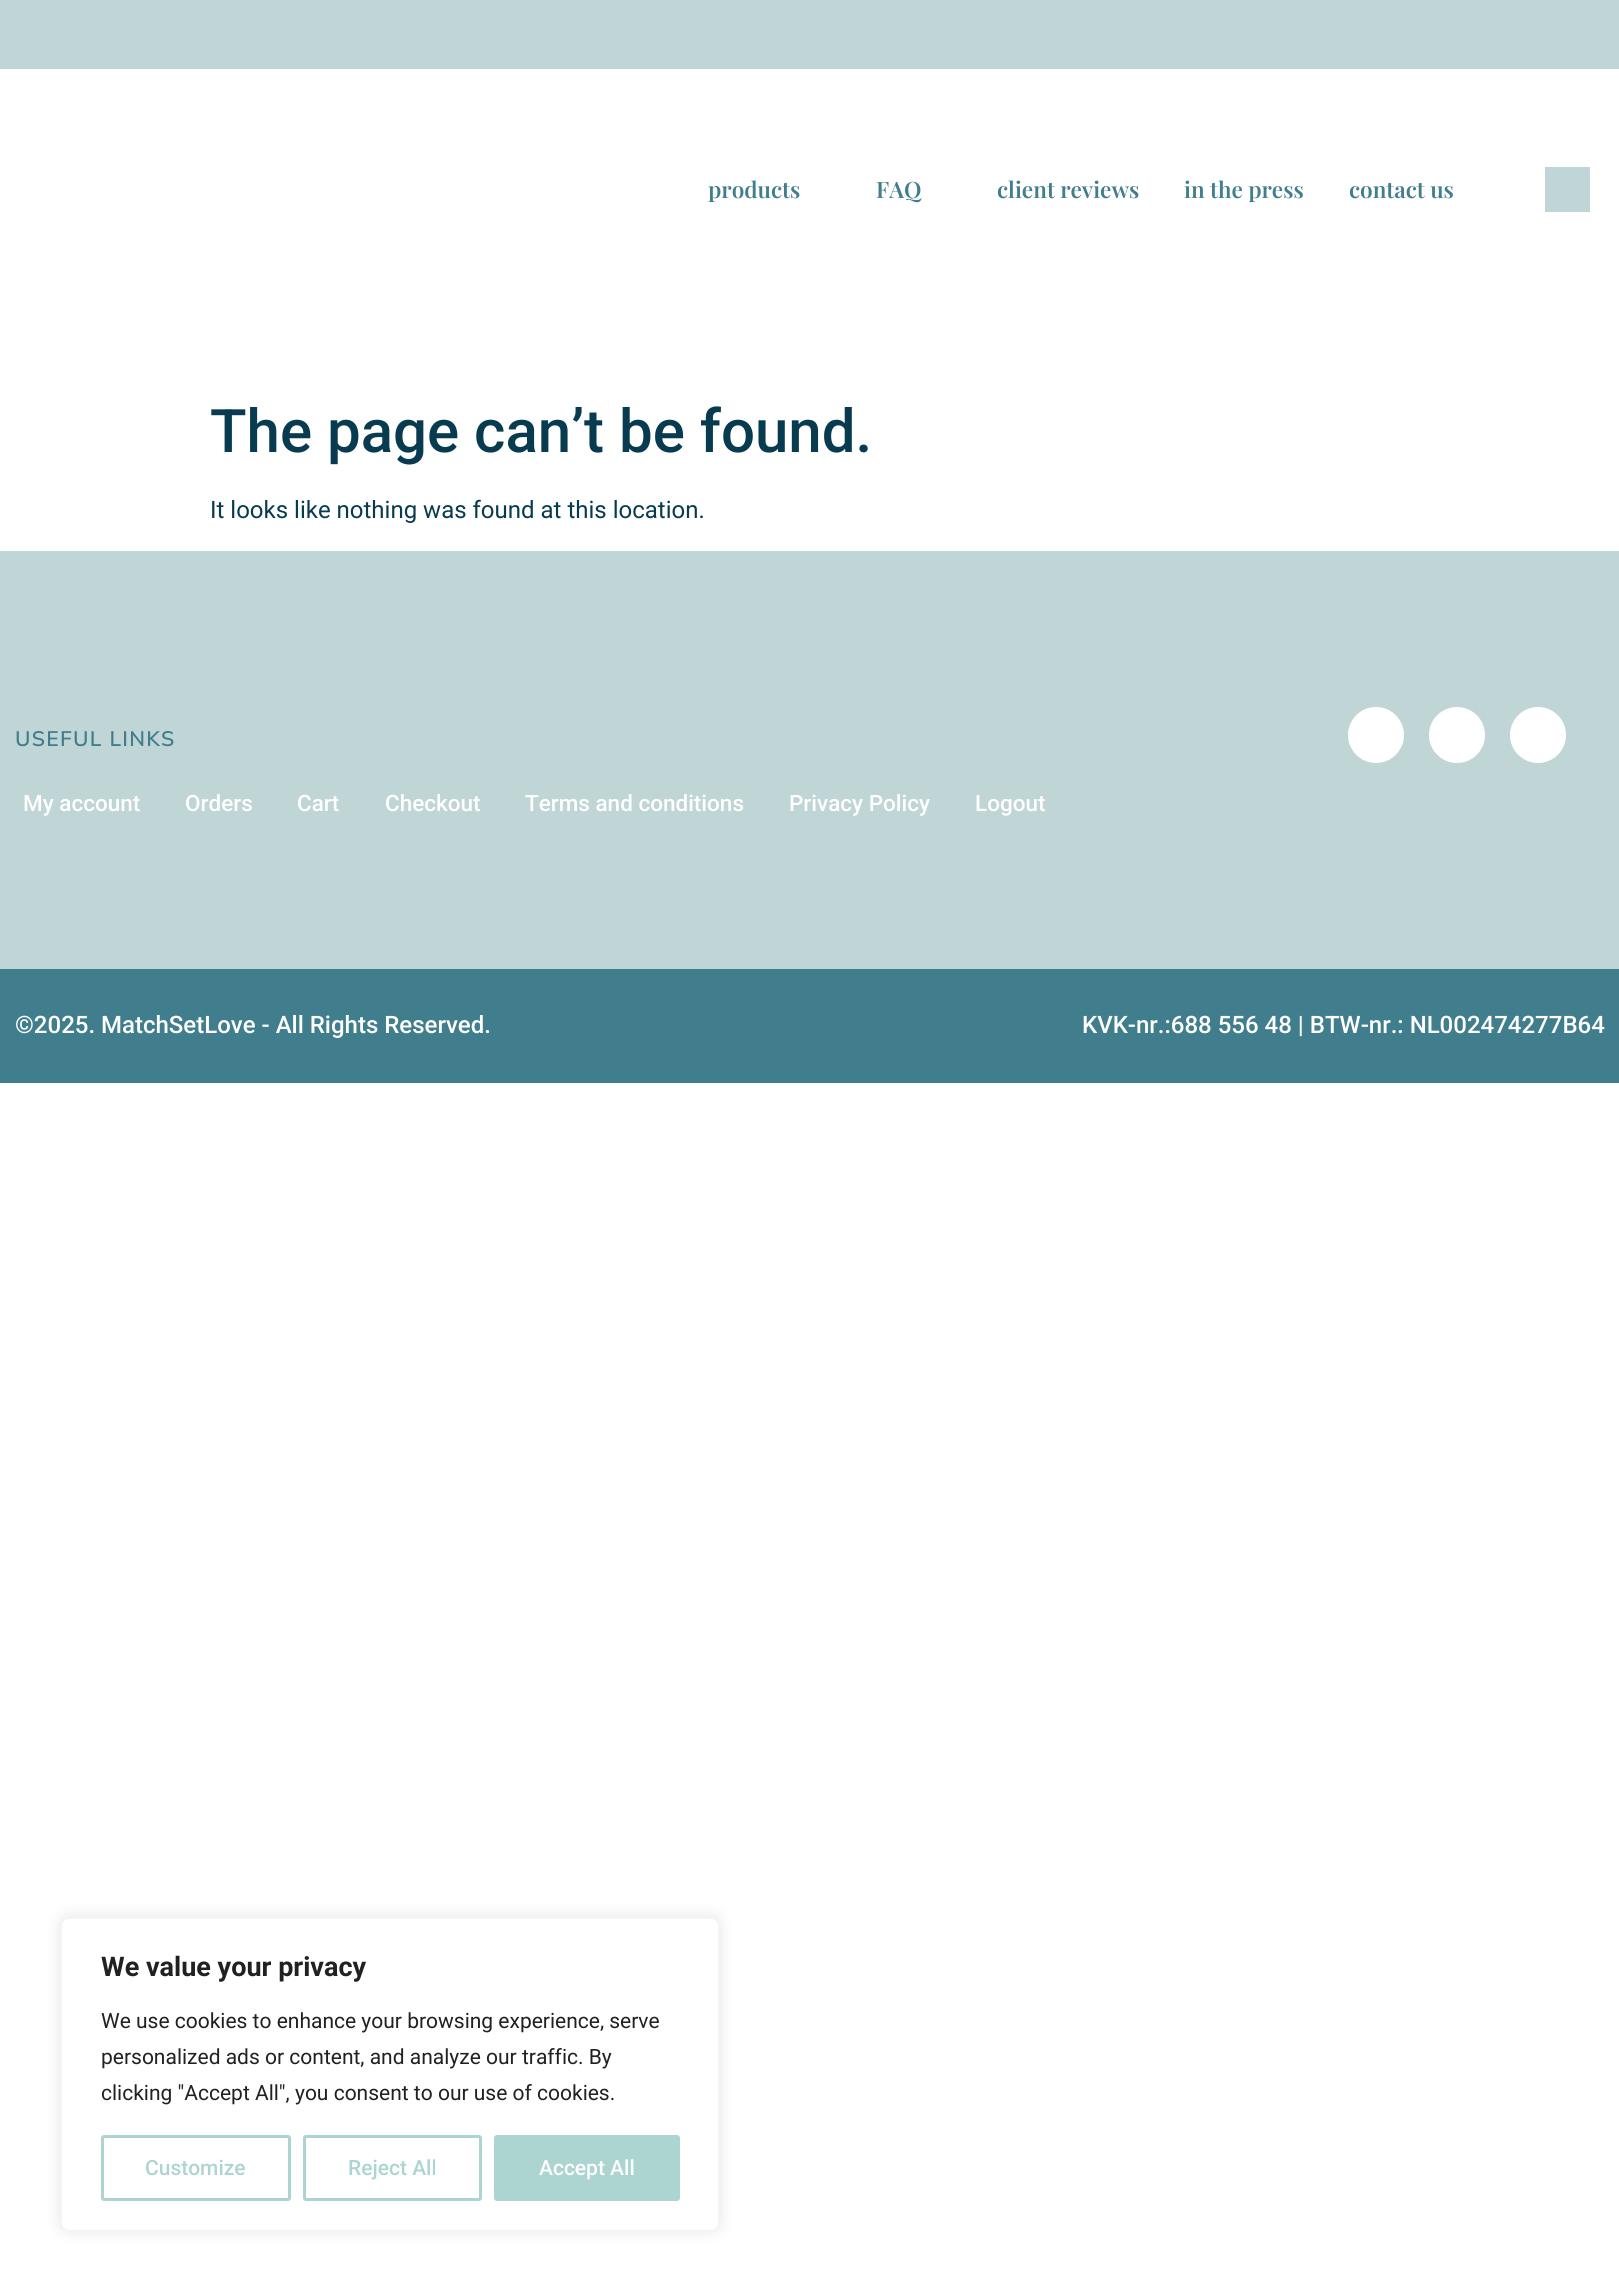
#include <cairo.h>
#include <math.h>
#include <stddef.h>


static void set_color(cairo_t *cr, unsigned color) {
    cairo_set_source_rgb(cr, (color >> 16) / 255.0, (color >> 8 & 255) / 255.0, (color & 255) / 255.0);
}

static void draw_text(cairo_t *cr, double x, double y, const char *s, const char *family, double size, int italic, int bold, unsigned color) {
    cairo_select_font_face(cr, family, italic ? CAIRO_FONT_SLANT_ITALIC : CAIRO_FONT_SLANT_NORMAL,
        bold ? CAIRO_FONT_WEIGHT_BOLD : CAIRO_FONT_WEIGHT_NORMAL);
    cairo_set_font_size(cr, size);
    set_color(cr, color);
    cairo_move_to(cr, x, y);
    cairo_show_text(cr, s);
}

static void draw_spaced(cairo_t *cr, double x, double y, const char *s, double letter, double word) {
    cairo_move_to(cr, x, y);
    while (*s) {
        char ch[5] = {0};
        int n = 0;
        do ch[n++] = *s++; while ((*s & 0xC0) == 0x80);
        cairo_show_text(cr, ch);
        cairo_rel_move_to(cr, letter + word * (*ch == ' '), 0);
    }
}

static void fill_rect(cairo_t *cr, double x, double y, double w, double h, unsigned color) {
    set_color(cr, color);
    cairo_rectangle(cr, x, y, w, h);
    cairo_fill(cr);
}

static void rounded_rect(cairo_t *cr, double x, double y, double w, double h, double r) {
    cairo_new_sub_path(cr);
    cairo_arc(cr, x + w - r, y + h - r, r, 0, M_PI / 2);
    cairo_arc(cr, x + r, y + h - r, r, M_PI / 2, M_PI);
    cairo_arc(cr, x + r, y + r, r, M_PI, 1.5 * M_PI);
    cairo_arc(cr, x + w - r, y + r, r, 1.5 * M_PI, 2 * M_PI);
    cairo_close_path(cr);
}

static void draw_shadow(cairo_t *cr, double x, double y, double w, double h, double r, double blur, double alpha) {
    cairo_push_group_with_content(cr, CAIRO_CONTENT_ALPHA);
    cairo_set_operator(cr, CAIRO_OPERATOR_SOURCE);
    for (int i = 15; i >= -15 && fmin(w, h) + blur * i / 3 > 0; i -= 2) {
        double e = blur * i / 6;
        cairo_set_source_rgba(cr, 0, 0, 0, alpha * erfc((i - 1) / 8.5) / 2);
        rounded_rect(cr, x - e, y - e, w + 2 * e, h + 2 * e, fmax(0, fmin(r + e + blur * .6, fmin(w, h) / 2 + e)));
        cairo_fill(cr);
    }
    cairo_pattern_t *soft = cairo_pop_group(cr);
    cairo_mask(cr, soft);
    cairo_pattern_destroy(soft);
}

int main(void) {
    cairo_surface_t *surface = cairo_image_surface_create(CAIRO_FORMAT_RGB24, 1619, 2291);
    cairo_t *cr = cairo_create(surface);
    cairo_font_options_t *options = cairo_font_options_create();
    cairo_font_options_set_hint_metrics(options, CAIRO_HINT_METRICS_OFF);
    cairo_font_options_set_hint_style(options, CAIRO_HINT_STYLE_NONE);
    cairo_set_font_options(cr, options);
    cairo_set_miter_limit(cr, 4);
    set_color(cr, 0xFFFFFF);
    cairo_paint(cr);
    fill_rect(cr, 0, 0, 1619, 69, 0xC0D5D5);
    draw_text(cr, 708, 198, "products", "Playfair Display SemiBold", 22.5, 0, 0, 0x407E8D);
    draw_text(cr, 876, 198, "FAQ", "Playfair Display SemiBold", 22.5, 0, 0, 0x407E8D);
    draw_text(cr, 997, 198, "client reviews", "Playfair Display SemiBold", 22.5, 0, 0, 0x407E8D);
    draw_text(cr, 1184, 198, "in the press", "Playfair Display SemiBold", 22.5, 0, 0, 0x407E8D);
    draw_text(cr, 1349, 198, "contact us", "Playfair Display SemiBold", 22.5, 0, 0, 0x407E8D);
    fill_rect(cr, 1545, 167, 45, 45, 0xC0D5D5);
    draw_text(cr, 210, 452, "The page can’t be found.", "Roboto Medium", 60, 0, 0, 0x083B50);
    draw_text(cr, 210, 518, "It looks like nothing was found at this location.", "Roboto", 24, 0, 0, 0x083B50);
    fill_rect(cr, 0, 551, 1619, 418, 0xC0D5D5);
    cairo_select_font_face(cr, "Mulish SemiBold", CAIRO_FONT_SLANT_NORMAL, CAIRO_FONT_WEIGHT_NORMAL);
    cairo_set_font_size(cr, 21);
    set_color(cr, 0x407E8D);
    draw_spaced(cr, 15, 746, "USEFUL LINKS", 1.25, 0);
    draw_text(cr, 23, 811, "My account", "Roboto Medium", 22.5, 0, 0, 0xFFFFFF);
    draw_text(cr, 185, 811, "Orders", "Roboto Medium", 22.5, 0, 0, 0xFFFFFF);
    draw_text(cr, 297, 811, "Cart", "Roboto Medium", 22.5, 0, 0, 0xFFFFFF);
    draw_text(cr, 385, 811, "Checkout", "Roboto Medium", 22.5, 0, 0, 0xFFFFFF);
    draw_text(cr, 525, 811, "Terms and conditions", "Roboto Medium", 22.5, 0, 0, 0xFFFFFF);
    draw_text(cr, 789, 811, "Privacy Policy", "Roboto Medium", 22.5, 0, 0, 0xFFFFFF);
    draw_text(cr, 975, 811, "Logout", "Roboto Medium", 22.5, 0, 0, 0xFFFFFF);
    cairo_new_path(cr);
    cairo_arc(cr, 1376, 735, 29, 0, 2 * M_PI);
    cairo_fill_preserve(cr);
    set_color(cr, 0xC0D5D5);
    cairo_stroke(cr);
    set_color(cr, 0xFFFFFF);
    cairo_arc(cr, 1457, 735, 29, 0, 2 * M_PI);
    cairo_fill_preserve(cr);
    set_color(cr, 0xC0D5D5);
    cairo_stroke(cr);
    set_color(cr, 0xFFFFFF);
    cairo_arc(cr, 1538, 735, 29, 0, 2 * M_PI);
    cairo_fill_preserve(cr);
    set_color(cr, 0xC0D5D5);
    cairo_stroke(cr);
    fill_rect(cr, 0, 969, 1619, 114, 0x407E8D);
    draw_text(cr, 15, 1033, "©2025. MatchSetLove - All Rights Reserved.", "Roboto Medium", 24, 0, 0, 0xFFFFFF);
    draw_text(cr, 1082, 1033, "KVK-nr.:688 556 48 | BTW-nr.: NL002474277B64", "Roboto Medium", 24, 0, 0, 0xFFFFFF);
    set_color(cr, 0xACABAB);
    draw_shadow(cr, 60, 1916, 660, 315, 9, 7.5, 0.3);
    set_color(cr, 0xFFFFFF);
    rounded_rect(cr, 61, 1918, 658, 313, 8);
    cairo_fill_preserve(cr);
    set_color(cr, 0xF4F4F4);
    cairo_stroke(cr);
    draw_text(cr, 101, 1976, "We value your privacy", "Roboto", 27, 0, 1, 0x212121);
    draw_text(cr, 101, 2028, "We use cookies to enhance your browsing experience, serve", "Roboto", 21, 0, 0, 0x212121);
    draw_text(cr, 101, 2064, "personalized ads or content, and analyze our traffic. By", "Roboto", 21, 0, 0, 0x212121);
    draw_text(cr, 101, 2100, "clicking \"Accept All\", you consent to our use of cookies.", "Roboto", 21, 0, 0, 0x212121);
    rounded_rect(cr, 102.5, 2136.5, 187, 63, 1.5);
    set_color(cr, 0xACD5D1);
    cairo_set_line_width(cr, 3);
    cairo_stroke(cr);
    draw_text(cr, 145, 2175, "Customize", "Roboto Medium", 21, 0, 0, 0xACD5D1);
    rounded_rect(cr, 304.5, 2136.5, 176, 63, 1.5);
    cairo_stroke(cr);
    draw_text(cr, 348, 2175, "Reject All", "Roboto Medium", 21, 0, 0, 0xACD5D1);
    rounded_rect(cr, 495.5, 2136.5, 183, 63, 1.5);
    cairo_fill_preserve(cr);
    cairo_stroke(cr);
    draw_text(cr, 539, 2175, "Accept All", "Roboto Medium", 21, 0, 0, 0xFFFFFF);
    cairo_surface_write_to_png(surface, "output.png");
    cairo_font_options_destroy(options);
    cairo_destroy(cr);
    cairo_surface_destroy(surface);
    return 0;
}
